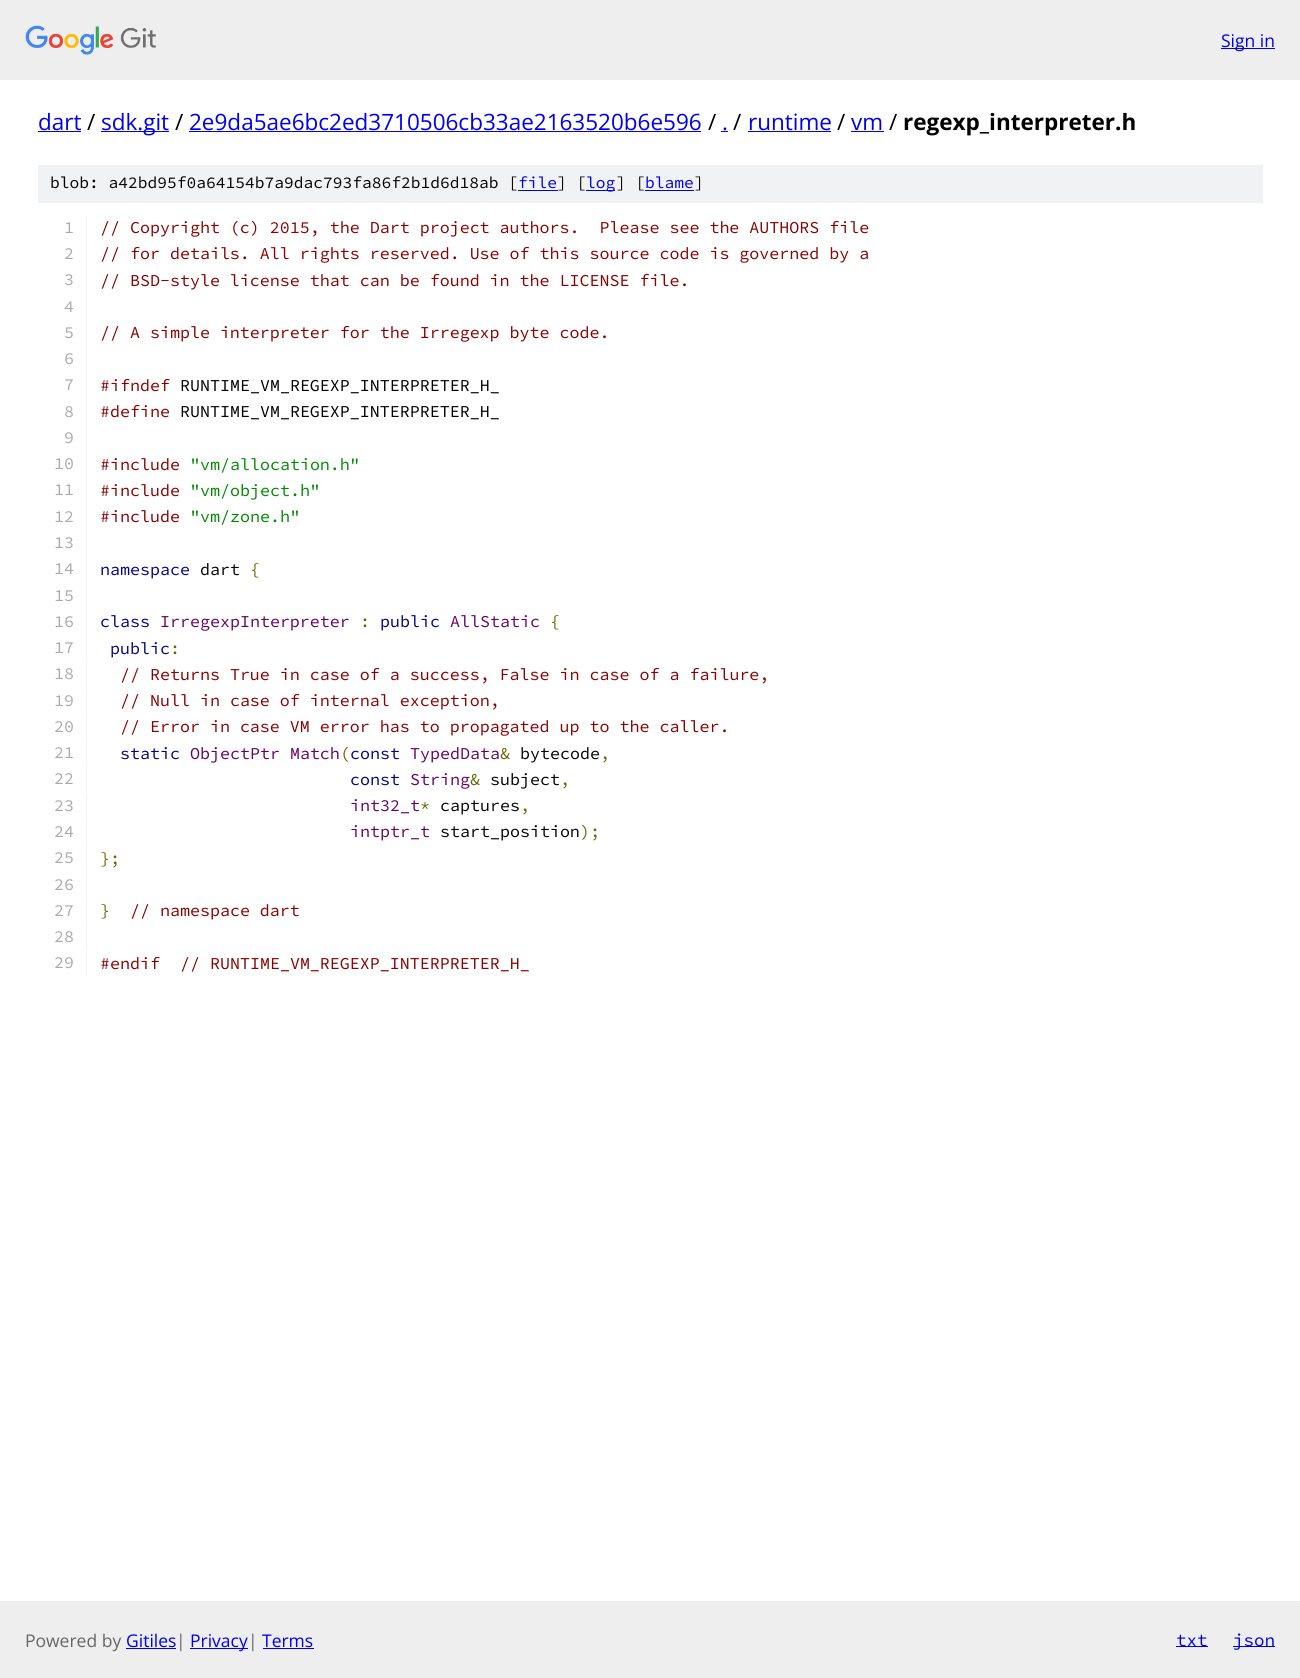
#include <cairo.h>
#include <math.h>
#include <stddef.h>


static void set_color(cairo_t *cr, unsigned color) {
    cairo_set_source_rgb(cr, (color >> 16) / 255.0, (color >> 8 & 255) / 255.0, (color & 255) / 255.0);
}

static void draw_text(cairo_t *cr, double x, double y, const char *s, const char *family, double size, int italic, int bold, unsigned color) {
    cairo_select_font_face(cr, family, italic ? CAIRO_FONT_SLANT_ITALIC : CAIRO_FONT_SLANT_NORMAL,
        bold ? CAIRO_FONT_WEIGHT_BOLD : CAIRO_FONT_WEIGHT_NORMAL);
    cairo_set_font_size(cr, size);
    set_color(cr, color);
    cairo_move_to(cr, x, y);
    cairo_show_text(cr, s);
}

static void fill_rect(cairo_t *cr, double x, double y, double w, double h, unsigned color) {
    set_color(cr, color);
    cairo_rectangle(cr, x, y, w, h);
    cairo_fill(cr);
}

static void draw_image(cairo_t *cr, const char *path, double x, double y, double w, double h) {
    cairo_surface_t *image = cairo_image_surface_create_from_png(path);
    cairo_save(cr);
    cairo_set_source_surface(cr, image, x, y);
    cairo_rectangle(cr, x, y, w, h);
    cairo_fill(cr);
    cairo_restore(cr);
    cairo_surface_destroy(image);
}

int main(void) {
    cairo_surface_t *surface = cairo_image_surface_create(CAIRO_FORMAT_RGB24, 1300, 1678);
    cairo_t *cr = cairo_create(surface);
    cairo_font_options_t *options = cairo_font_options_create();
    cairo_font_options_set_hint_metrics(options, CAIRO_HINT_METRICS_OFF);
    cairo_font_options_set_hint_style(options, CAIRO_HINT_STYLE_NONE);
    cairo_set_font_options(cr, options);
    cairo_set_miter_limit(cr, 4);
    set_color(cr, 0xFFFFFF);
    cairo_paint(cr);
    fill_rect(cr, 0, 0, 1300, 80, 0xEEEEEE);
    draw_image(cr, "assets/img1.png", 25, 25, 131, 30);
    fill_rect(cr, 1221, 48, 54, 1, 0x0000EE);
    draw_text(cr, 1221, 47, "Sign in", "Open Sans", 17.5, 0, 0, 0x0000EE);
    draw_text(cr, 38, 130, "dart", "Open Sans", 22.5, 0, 0, 0x0000EE);
    fill_rect(cr, 38, 131, 43, 1, 0x0000EE);
    draw_text(cr, 87, 130, "/", "Open Sans", 22.5, 0, 0, 0x000000);
    fill_rect(cr, 101, 131, 68, 1, 0x0000EE);
    draw_text(cr, 101, 130, "sdk.git", "Open Sans", 22.5, 0, 0, 0x0000EE);
    draw_text(cr, 175, 130, "/", "Open Sans", 22.5, 0, 0, 0x000000);
    draw_text(cr, 189, 130, "2e9da5ae6bc2ed3710506cb33ae2163520b6e596", "Open Sans", 22.5, 0, 0, 0x0000EE);
    fill_rect(cr, 189, 131, 512, 1, 0x0000EE);
    draw_text(cr, 708, 130, "/", "Open Sans", 22.5, 0, 0, 0x000000);
    draw_text(cr, 722, 130, ".", "Open Sans", 22.5, 0, 0, 0x0000EE);
    fill_rect(cr, 721, 131, 7, 1, 0x0000EE);
    draw_text(cr, 733, 130, "/", "Open Sans", 22.5, 0, 0, 0x000000);
    draw_text(cr, 748, 130, "runtime", "Open Sans", 22.5, 0, 0, 0x0000EE);
    fill_rect(cr, 748, 131, 83, 1, 0x0000EE);
    draw_text(cr, 837, 130, "/", "Open Sans", 22.5, 0, 0, 0x000000);
    draw_text(cr, 851, 130, "vm", "Open Sans", 22.5, 0, 0, 0x0000EE);
    fill_rect(cr, 851, 131, 33, 1, 0x0000EE);
    draw_text(cr, 889, 130, "/", "Open Sans", 22.5, 0, 0, 0x000000);
    draw_text(cr, 903, 130, "regexp_interpreter.h", "Open Sans", 22.5, 0, 1, 0x000000);
    fill_rect(cr, 38, 165, 1225, 38, 0xF1F2F3);
    draw_text(cr, 50, 188, "blob: a42bd95f0a64154b7a9dac793fa86f2b1d6d18ab [", "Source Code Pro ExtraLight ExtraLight", 16.25, 0, 0, 0x000000);
    draw_text(cr, 518, 188, "file", "Source Code Pro ExtraLight ExtraLight", 16.25, 0, 0, 0x0000EE);
    fill_rect(cr, 518, 190, 40, 1, 0x0000EE);
    draw_text(cr, 557, 188, "] [", "Source Code Pro ExtraLight ExtraLight", 16.25, 0, 0, 0x000000);
    fill_rect(cr, 586, 190, 29, 1, 0x0000EE);
    draw_text(cr, 586, 188, "log", "Source Code Pro ExtraLight ExtraLight", 16.25, 0, 0, 0x0000EE);
    draw_text(cr, 616, 188, "] [", "Source Code Pro ExtraLight ExtraLight", 16.25, 0, 0, 0x000000);
    draw_text(cr, 645, 188, "blame", "Source Code Pro ExtraLight ExtraLight", 16.25, 0, 0, 0x0000EE);
    fill_rect(cr, 645, 190, 49, 1, 0x0000EE);
    draw_text(cr, 694, 188, "]", "Source Code Pro ExtraLight ExtraLight", 16.25, 0, 0, 0x000000);
    fill_rect(cr, 86, 215, 1, 446, 0xF1F2F3);
    draw_text(cr, 64, 233, "1", "Source Code Pro ExtraLight ExtraLight", 16.65, 0, 0, 0xAAAAAA);
    draw_text(cr, 100, 233, "// Copyright (c) 2015, the Dart project authors.  Please see the AUTHORS file", "Source Code Pro ExtraLight ExtraLight", 16.65, 0, 0, 0x880000);
    draw_text(cr, 64, 259, "2", "Source Code Pro ExtraLight ExtraLight", 16.65, 0, 0, 0xAAAAAA);
    draw_text(cr, 100, 259, "// for details. All rights reserved. Use of this source code is governed by a", "Source Code Pro ExtraLight ExtraLight", 16.65, 0, 0, 0x880000);
    draw_text(cr, 64, 285, "3", "Source Code Pro ExtraLight ExtraLight", 16.65, 0, 0, 0xAAAAAA);
    draw_text(cr, 100, 286, "// BSD-style license that can be found in the LICENSE file.", "Source Code Pro ExtraLight ExtraLight", 16.65, 0, 0, 0x880000);
    draw_text(cr, 64, 312, "4", "Source Code Pro ExtraLight ExtraLight", 16.65, 0, 0, 0xAAAAAA);
    draw_text(cr, 64, 338, "5", "Source Code Pro ExtraLight ExtraLight", 16.65, 0, 0, 0xAAAAAA);
    draw_text(cr, 100, 338, "// A simple interpreter for the Irregexp byte code.", "Source Code Pro ExtraLight ExtraLight", 16.65, 0, 0, 0x880000);
    draw_text(cr, 64, 364, "6", "Source Code Pro ExtraLight ExtraLight", 16.65, 0, 0, 0xAAAAAA);
    draw_text(cr, 64, 390, "7", "Source Code Pro ExtraLight ExtraLight", 16.65, 0, 0, 0xAAAAAA);
    draw_text(cr, 100, 391, "#ifndef", "Source Code Pro ExtraLight ExtraLight", 16.65, 0, 0, 0x880000);
    draw_text(cr, 180, 391, "RUNTIME_VM_REGEXP_INTERPRETER_H_", "Source Code Pro ExtraLight ExtraLight", 16.65, 0, 0, 0x000000);
    draw_text(cr, 64, 417, "8", "Source Code Pro ExtraLight ExtraLight", 16.65, 0, 0, 0xAAAAAA);
    draw_text(cr, 100, 417, "#define", "Source Code Pro ExtraLight ExtraLight", 16.65, 0, 0, 0x880000);
    draw_text(cr, 180, 417, "RUNTIME_VM_REGEXP_INTERPRETER_H_", "Source Code Pro ExtraLight ExtraLight", 16.65, 0, 0, 0x000000);
    draw_text(cr, 64, 443, "9", "Source Code Pro ExtraLight ExtraLight", 16.65, 0, 0, 0xAAAAAA);
    draw_text(cr, 54, 469, "10", "Source Code Pro ExtraLight ExtraLight", 16.65, 0, 0, 0xAAAAAA);
    draw_text(cr, 100, 470, "#include", "Source Code Pro ExtraLight ExtraLight", 16.65, 0, 0, 0x880000);
    draw_text(cr, 190, 470, "\"vm/allocation.h\"", "Source Code Pro ExtraLight ExtraLight", 16.65, 0, 0, 0x008800);
    draw_text(cr, 54, 495, "11", "Source Code Pro ExtraLight ExtraLight", 16.65, 0, 0, 0xAAAAAA);
    draw_text(cr, 100, 496, "#include", "Source Code Pro ExtraLight ExtraLight", 16.65, 0, 0, 0x880000);
    draw_text(cr, 190, 496, "\"vm/object.h\"", "Source Code Pro ExtraLight ExtraLight", 16.65, 0, 0, 0x008800);
    draw_text(cr, 54, 522, "12", "Source Code Pro ExtraLight ExtraLight", 16.65, 0, 0, 0xAAAAAA);
    draw_text(cr, 100, 522, "#include", "Source Code Pro ExtraLight ExtraLight", 16.65, 0, 0, 0x880000);
    draw_text(cr, 190, 522, "\"vm/zone.h\"", "Source Code Pro ExtraLight ExtraLight", 16.65, 0, 0, 0x008800);
    draw_text(cr, 54, 548, "13", "Source Code Pro ExtraLight ExtraLight", 16.65, 0, 0, 0xAAAAAA);
    draw_text(cr, 54, 574, "14", "Source Code Pro ExtraLight ExtraLight", 16.65, 0, 0, 0xAAAAAA);
    draw_text(cr, 100, 575, "namespace", "Source Code Pro ExtraLight ExtraLight", 16.65, 0, 0, 0x000088);
    draw_text(cr, 200, 575, "dart", "Source Code Pro ExtraLight ExtraLight", 16.65, 0, 0, 0x000000);
    draw_text(cr, 250, 575, "{", "Source Code Pro ExtraLight ExtraLight", 16.65, 0, 0, 0x666600);
    draw_text(cr, 54, 601, "15", "Source Code Pro ExtraLight ExtraLight", 16.65, 0, 0, 0xAAAAAA);
    draw_text(cr, 54, 627, "16", "Source Code Pro ExtraLight ExtraLight", 16.65, 0, 0, 0xAAAAAA);
    draw_text(cr, 100, 627, "class", "Source Code Pro ExtraLight ExtraLight", 16.65, 0, 0, 0x000088);
    draw_text(cr, 160, 627, "IrregexpInterpreter", "Source Code Pro ExtraLight ExtraLight", 16.65, 0, 0, 0x660066);
    draw_text(cr, 360, 627, ":", "Source Code Pro ExtraLight ExtraLight", 16.65, 0, 0, 0x666600);
    draw_text(cr, 380, 627, "public", "Source Code Pro ExtraLight ExtraLight", 16.65, 0, 0, 0x000088);
    draw_text(cr, 450, 627, "AllStatic", "Source Code Pro ExtraLight ExtraLight", 16.65, 0, 0, 0x660066);
    draw_text(cr, 550, 627, "{", "Source Code Pro ExtraLight ExtraLight", 16.65, 0, 0, 0x666600);
    draw_text(cr, 54, 653, "17", "Source Code Pro ExtraLight ExtraLight", 16.65, 0, 0, 0xAAAAAA);
    draw_text(cr, 110, 654, "public", "Source Code Pro ExtraLight ExtraLight", 16.65, 0, 0, 0x000088);
    draw_text(cr, 170, 654, ":", "Source Code Pro ExtraLight ExtraLight", 16.65, 0, 0, 0x666600);
    fill_rect(cr, 86, 663, 1, 25, 0xF1F2F3);
    draw_text(cr, 54, 679, "18", "Source Code Pro ExtraLight ExtraLight", 16.65, 0, 0, 0xAAAAAA);
    draw_text(cr, 120, 680, "// Returns True in case of a success, False in case of a failure,", "Source Code Pro ExtraLight ExtraLight", 16.65, 0, 0, 0x880000);
    fill_rect(cr, 86, 689, 1, 25, 0xF1F2F3);
    draw_text(cr, 54, 706, "19", "Source Code Pro ExtraLight ExtraLight", 16.65, 0, 0, 0xAAAAAA);
    draw_text(cr, 120, 706, "// Null in case of internal exception,", "Source Code Pro ExtraLight ExtraLight", 16.65, 0, 0, 0x880000);
    fill_rect(cr, 86, 715, 1, 25, 0xF1F2F3);
    draw_text(cr, 54, 732, "20", "Source Code Pro ExtraLight ExtraLight", 16.65, 0, 0, 0xAAAAAA);
    draw_text(cr, 120, 732, "// Error in case VM error has to propagated up to the caller.", "Source Code Pro ExtraLight ExtraLight", 16.65, 0, 0, 0x880000);
    fill_rect(cr, 86, 741, 1, 25, 0xF1F2F3);
    draw_text(cr, 54, 758, "21", "Source Code Pro ExtraLight ExtraLight", 16.65, 0, 0, 0xAAAAAA);
    draw_text(cr, 120, 759, "static", "Source Code Pro ExtraLight ExtraLight", 16.65, 0, 0, 0x000088);
    draw_text(cr, 190, 759, "ObjectPtr Match", "Source Code Pro ExtraLight ExtraLight", 16.65, 0, 0, 0x660066);
    draw_text(cr, 340, 759, "(", "Source Code Pro ExtraLight ExtraLight", 16.65, 0, 0, 0x666600);
    draw_text(cr, 350, 759, "const", "Source Code Pro ExtraLight ExtraLight", 16.65, 0, 0, 0x000088);
    draw_text(cr, 410, 759, "TypedData", "Source Code Pro ExtraLight ExtraLight", 16.65, 0, 0, 0x660066);
    draw_text(cr, 500, 759, "&", "Source Code Pro ExtraLight ExtraLight", 16.65, 0, 0, 0x666600);
    draw_text(cr, 520, 759, "bytecode", "Source Code Pro ExtraLight ExtraLight", 16.65, 0, 0, 0x000000);
    draw_text(cr, 600, 759, ",", "Source Code Pro ExtraLight ExtraLight", 16.65, 0, 0, 0x666600);
    fill_rect(cr, 86, 768, 1, 25, 0xF1F2F3);
    draw_text(cr, 54, 784, "22", "Source Code Pro ExtraLight ExtraLight", 16.65, 0, 0, 0xAAAAAA);
    draw_text(cr, 350, 785, "const", "Source Code Pro ExtraLight ExtraLight", 16.65, 0, 0, 0x000088);
    draw_text(cr, 410, 785, "String", "Source Code Pro ExtraLight ExtraLight", 16.65, 0, 0, 0x660066);
    draw_text(cr, 470, 785, "&", "Source Code Pro ExtraLight ExtraLight", 16.65, 0, 0, 0x666600);
    draw_text(cr, 490, 785, "subject", "Source Code Pro ExtraLight ExtraLight", 16.65, 0, 0, 0x000000);
    draw_text(cr, 560, 785, ",", "Source Code Pro ExtraLight ExtraLight", 16.65, 0, 0, 0x666600);
    fill_rect(cr, 86, 794, 1, 25, 0xF1F2F3);
    draw_text(cr, 54, 811, "23", "Source Code Pro ExtraLight ExtraLight", 16.65, 0, 0, 0xAAAAAA);
    draw_text(cr, 350, 811, "int32_t", "Source Code Pro ExtraLight ExtraLight", 16.65, 0, 0, 0x660066);
    draw_text(cr, 420, 811, "*", "Source Code Pro ExtraLight ExtraLight", 16.65, 0, 0, 0x666600);
    draw_text(cr, 440, 811, "captures", "Source Code Pro ExtraLight ExtraLight", 16.65, 0, 0, 0x000000);
    draw_text(cr, 520, 811, ",", "Source Code Pro ExtraLight ExtraLight", 16.65, 0, 0, 0x666600);
    fill_rect(cr, 86, 820, 1, 25, 0xF1F2F3);
    draw_text(cr, 54, 837, "24", "Source Code Pro ExtraLight ExtraLight", 16.65, 0, 0, 0xAAAAAA);
    draw_text(cr, 350, 837, "intptr_t", "Source Code Pro ExtraLight ExtraLight", 16.65, 0, 0, 0x660066);
    draw_text(cr, 440, 837, "start_position", "Source Code Pro ExtraLight ExtraLight", 16.65, 0, 0, 0x000000);
    draw_text(cr, 580, 837, ");", "Source Code Pro ExtraLight ExtraLight", 16.65, 0, 0, 0x666600);
    fill_rect(cr, 86, 846, 1, 25, 0xF1F2F3);
    draw_text(cr, 54, 863, "25", "Source Code Pro ExtraLight ExtraLight", 16.65, 0, 0, 0xAAAAAA);
    draw_text(cr, 100, 864, "};", "Source Code Pro ExtraLight ExtraLight", 16.65, 0, 0, 0x666600);
    fill_rect(cr, 86, 873, 1, 25, 0xF1F2F3);
    draw_text(cr, 54, 890, "26", "Source Code Pro ExtraLight ExtraLight", 16.65, 0, 0, 0xAAAAAA);
    fill_rect(cr, 86, 899, 1, 25, 0xF1F2F3);
    draw_text(cr, 54, 916, "27", "Source Code Pro ExtraLight ExtraLight", 16.65, 0, 0, 0xAAAAAA);
    draw_text(cr, 100, 916, "}", "Source Code Pro ExtraLight ExtraLight", 16.65, 0, 0, 0x666600);
    draw_text(cr, 130, 916, "// namespace dart", "Source Code Pro ExtraLight ExtraLight", 16.65, 0, 0, 0x880000);
    fill_rect(cr, 86, 925, 1, 25, 0xF1F2F3);
    draw_text(cr, 54, 942, "28", "Source Code Pro ExtraLight ExtraLight", 16.65, 0, 0, 0xAAAAAA);
    fill_rect(cr, 86, 951, 1, 25, 0xF1F2F3);
    draw_text(cr, 54, 968, "29", "Source Code Pro ExtraLight ExtraLight", 16.65, 0, 0, 0xAAAAAA);
    draw_text(cr, 100, 969, "#endif", "Source Code Pro ExtraLight ExtraLight", 16.65, 0, 0, 0x880000);
    draw_text(cr, 180, 969, "// RUNTIME_VM_REGEXP_INTERPRETER_H_", "Source Code Pro ExtraLight ExtraLight", 16.65, 0, 0, 0x880000);
    fill_rect(cr, 0, 1601, 1300, 77, 0xEEEEEE);
    draw_text(cr, 25, 1647, "Powered by", "Open Sans", 17.5, 0, 0, 0x666666);
    draw_text(cr, 126, 1647, "Gitiles", "Open Sans", 17.5, 0, 0, 0x0000EE);
    fill_rect(cr, 126, 1648, 50, 1, 0x0000EE);
    draw_text(cr, 176, 1647, "|", "Open Sans", 17.5, 0, 0, 0x666666);
    fill_rect(cr, 190, 1648, 58, 1, 0x0000EE);
    draw_text(cr, 190, 1647, "Privacy", "Open Sans", 17.5, 0, 0, 0x0000EE);
    draw_text(cr, 248, 1647, "|", "Open Sans", 17.5, 0, 0, 0x666666);
    draw_text(cr, 262, 1647, "Terms", "Open Sans", 17.5, 0, 0, 0x0000EE);
    fill_rect(cr, 263, 1648, 51, 1, 0x0000EE);
    fill_rect(cr, 1176, 1646, 32, 1, 0x0000EE);
    draw_text(cr, 1176, 1646, "txt", "Source Code Pro ExtraLight ExtraLight", 17.5, 0, 0, 0x0000EE);
    fill_rect(cr, 1233, 1646, 42, 1, 0x0000EE);
    draw_text(cr, 1233, 1646, "json", "Source Code Pro ExtraLight ExtraLight", 17.5, 0, 0, 0x0000EE);
    cairo_surface_write_to_png(surface, "output.png");
    cairo_font_options_destroy(options);
    cairo_destroy(cr);
    cairo_surface_destroy(surface);
    return 0;
}
